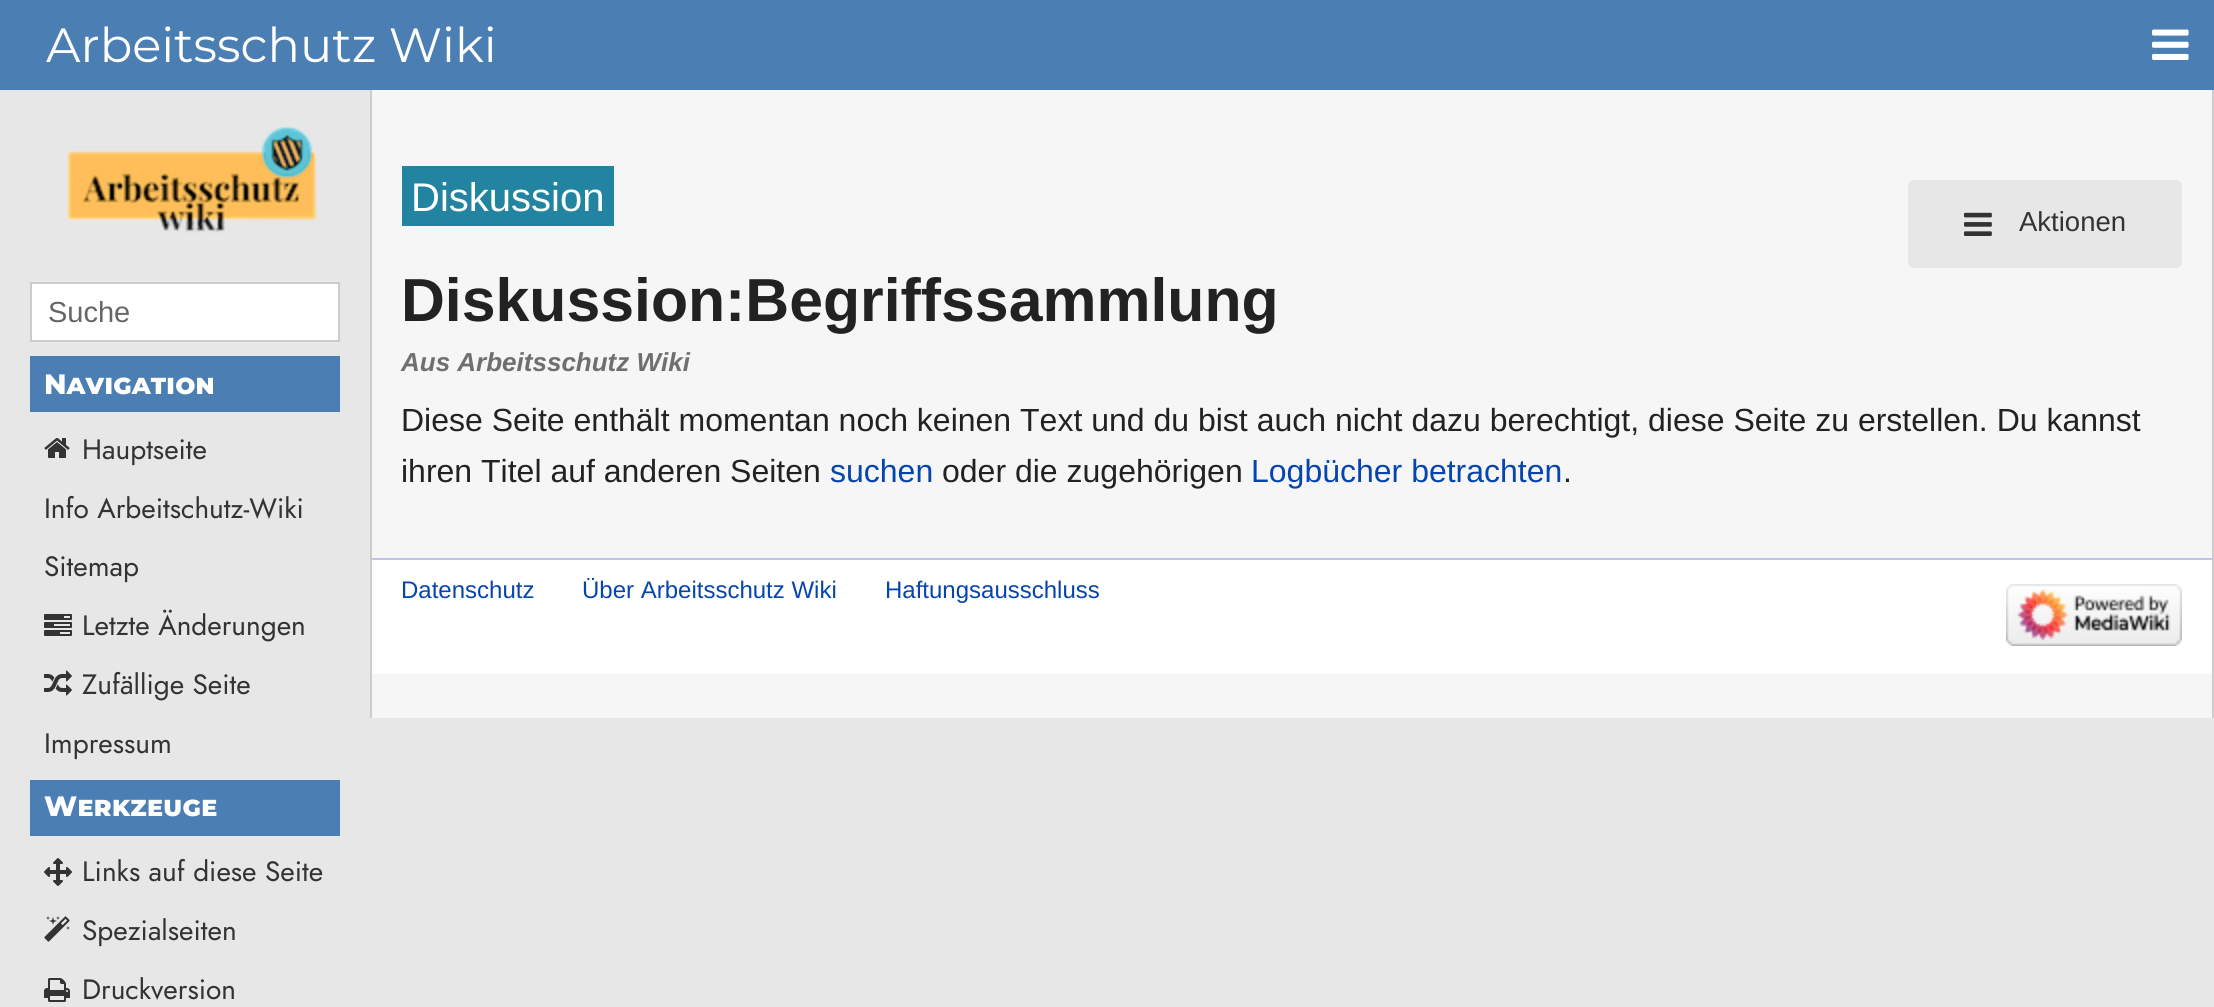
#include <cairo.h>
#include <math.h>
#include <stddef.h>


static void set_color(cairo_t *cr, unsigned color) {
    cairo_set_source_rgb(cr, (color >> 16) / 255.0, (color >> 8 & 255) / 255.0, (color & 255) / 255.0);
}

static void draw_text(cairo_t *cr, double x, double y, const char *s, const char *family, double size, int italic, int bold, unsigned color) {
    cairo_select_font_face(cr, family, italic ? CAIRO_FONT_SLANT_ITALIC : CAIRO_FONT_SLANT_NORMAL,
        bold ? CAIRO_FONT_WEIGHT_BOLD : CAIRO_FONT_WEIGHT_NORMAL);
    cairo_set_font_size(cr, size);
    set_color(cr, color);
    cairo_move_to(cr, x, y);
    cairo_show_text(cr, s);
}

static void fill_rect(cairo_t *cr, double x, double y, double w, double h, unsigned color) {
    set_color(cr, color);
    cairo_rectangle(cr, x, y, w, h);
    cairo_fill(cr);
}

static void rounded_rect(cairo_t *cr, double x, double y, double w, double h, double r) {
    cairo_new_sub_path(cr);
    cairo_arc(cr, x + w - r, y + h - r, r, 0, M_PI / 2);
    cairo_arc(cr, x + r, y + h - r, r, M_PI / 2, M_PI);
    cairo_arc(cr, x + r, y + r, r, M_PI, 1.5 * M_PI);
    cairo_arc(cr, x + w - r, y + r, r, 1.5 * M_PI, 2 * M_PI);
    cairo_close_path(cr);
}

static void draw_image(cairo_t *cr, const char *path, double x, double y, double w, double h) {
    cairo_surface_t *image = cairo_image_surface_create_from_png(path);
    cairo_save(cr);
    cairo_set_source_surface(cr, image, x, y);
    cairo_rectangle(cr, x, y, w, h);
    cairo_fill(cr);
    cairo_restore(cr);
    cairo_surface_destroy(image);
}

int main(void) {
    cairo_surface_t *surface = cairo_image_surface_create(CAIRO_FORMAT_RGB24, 2214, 1007);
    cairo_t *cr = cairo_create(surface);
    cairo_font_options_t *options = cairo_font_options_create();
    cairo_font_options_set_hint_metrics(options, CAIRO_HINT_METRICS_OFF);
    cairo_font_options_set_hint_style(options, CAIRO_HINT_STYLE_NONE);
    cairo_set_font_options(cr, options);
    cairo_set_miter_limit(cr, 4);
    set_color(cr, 0xE7E7E7);
    cairo_paint(cr);
    fill_rect(cr, 0, 0, 2214, 90, 0x4B7EB2);
    draw_text(cr, 46, 62, "Arbeitsschutz Wiki", "Montserrat", 48, 0, 0, 0xFFFFFF);
    draw_image(cr, "assets/img1.png", 2152, 29, 37, 31);
    draw_image(cr, "assets/img2.png", 67, 126, 250, 107);
    cairo_rectangle(cr, 31, 283, 308, 58);
    cairo_fill_preserve(cr);
    set_color(cr, 0xCCCCCC);
    cairo_stroke(cr);
    draw_text(cr, 48, 322, "Suche", "Liberation Sans", 29, 0, 0, 0x666666);
    fill_rect(cr, 30, 356, 310, 56, 0x4B7EB2);
    draw_text(cr, 44, 394, "Navigation", "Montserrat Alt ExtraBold", 28, 0, 0, 0xFFFFFF);
    draw_image(cr, "assets/img3.png", 44, 438, 26, 20);
    draw_text(cr, 82, 459, "Hauptseite", "Jost", 28, 0, 0, 0x333333);
    draw_text(cr, 44, 518, "Info Arbeitschutz-Wiki", "Jost", 28, 0, 0, 0x333333);
    draw_text(cr, 44, 576, "Sitemap", "Jost", 28, 0, 0, 0x333333);
    draw_image(cr, "assets/img4.png", 44, 614, 28, 22);
    draw_text(cr, 82, 635, "Letzte Änderungen", "Jost", 28, 0, 0, 0x333333);
    draw_image(cr, "assets/img5.png", 44, 670, 28, 26);
    draw_text(cr, 82, 694, "Zufällige Seite", "Jost", 28, 0, 0, 0x333333);
    draw_text(cr, 44, 753, "Impressum", "Jost", 28, 0, 0, 0x333333);
    fill_rect(cr, 30, 780, 310, 56, 0x4B7EB2);
    draw_text(cr, 44, 816, "Werkzeuge", "Montserrat Alt ExtraBold", 28, 0, 0, 0xFFFFFF);
    draw_image(cr, "assets/img6.png", 44, 858, 28, 28);
    draw_text(cr, 82, 881, "Links auf diese Seite", "Jost", 28, 0, 0, 0x333333);
    draw_image(cr, "assets/img7.png", 44, 916, 26, 26);
    draw_text(cr, 82, 940, "Spezialseiten", "Jost", 28, 0, 0, 0x333333);
    draw_image(cr, "assets/img8.png", 44, 978, 26, 24);
    draw_text(cr, 82, 999, "Druckversion", "Jost", 28, 0, 0, 0x333333);
    fill_rect(cr, 372, 90, 1840, 628, 0xF6F6F6);
    fill_rect(cr, 2212, 90, 2, 628, 0xCCCCCC);
    fill_rect(cr, 370, 90, 2, 628, 0xCCCCCC);
    fill_rect(cr, 402, 166, 212, 60, 0x2284A1);
    draw_text(cr, 411, 211, "Diskussion", "Liberation Sans", 40, 0, 0, 0xFFFFFF);
    set_color(cr, 0xE7E7E7);
    rounded_rect(cr, 1908, 180, 274, 88, 6);
    cairo_fill(cr);
    draw_image(cr, "assets/img9.png", 1964, 212, 28, 24);
    draw_text(cr, 2019, 231, "Aktionen", "Liberation Sans", 27.5, 0, 0, 0x333333);
    draw_text(cr, 401, 321, "Diskussion:Begriffssammlung", "Liberation Sans", 60.75, 0, 1, 0x222222);
    draw_text(cr, 401, 371, "Aus Arbeitsschutz Wiki", "Liberation Sans", 26, 1, 1, 0x6F6F6F);
    draw_text(cr, 401, 431, "Diese Seite enthält momentan noch keinen Text und du bist auch nicht dazu berechtigt, diese Seite zu erstellen. Du kannst", "Liberation Sans", 32, 0, 0, 0x222222);
    draw_text(cr, 401, 482, "ihren Titel auf anderen Seiten", "Liberation Sans", 32, 0, 0, 0x222222);
    draw_text(cr, 830, 482, "suchen", "Liberation Sans", 32, 0, 0, 0x0645AD);
    draw_text(cr, 942, 482, "oder die zugehörigen", "Liberation Sans", 32, 0, 0, 0x222222);
    draw_text(cr, 1251, 482, "Logbücher betrachten", "Liberation Sans", 32, 0, 0, 0x0645AD);
    draw_text(cr, 1563, 482, ".", "Liberation Sans", 32, 0, 0, 0x222222);
    fill_rect(cr, 372, 560, 1840, 114, 0xFFFFFF);
    fill_rect(cr, 372, 558, 1840, 2, 0xC3C3E5);
    draw_text(cr, 401, 598, "Datenschutz", "Liberation Sans", 24, 0, 0, 0x0645AD);
    draw_text(cr, 582, 598, "Über Arbeitsschutz Wiki", "Liberation Sans", 24, 0, 0, 0x0645AD);
    draw_text(cr, 885, 598, "Haftungsausschluss", "Liberation Sans", 24, 0, 0, 0x0645AD);
    draw_image(cr, "assets/img10.png", 2006, 584, 176, 62);
    cairo_surface_write_to_png(surface, "output.png");
    cairo_font_options_destroy(options);
    cairo_destroy(cr);
    cairo_surface_destroy(surface);
    return 0;
}
